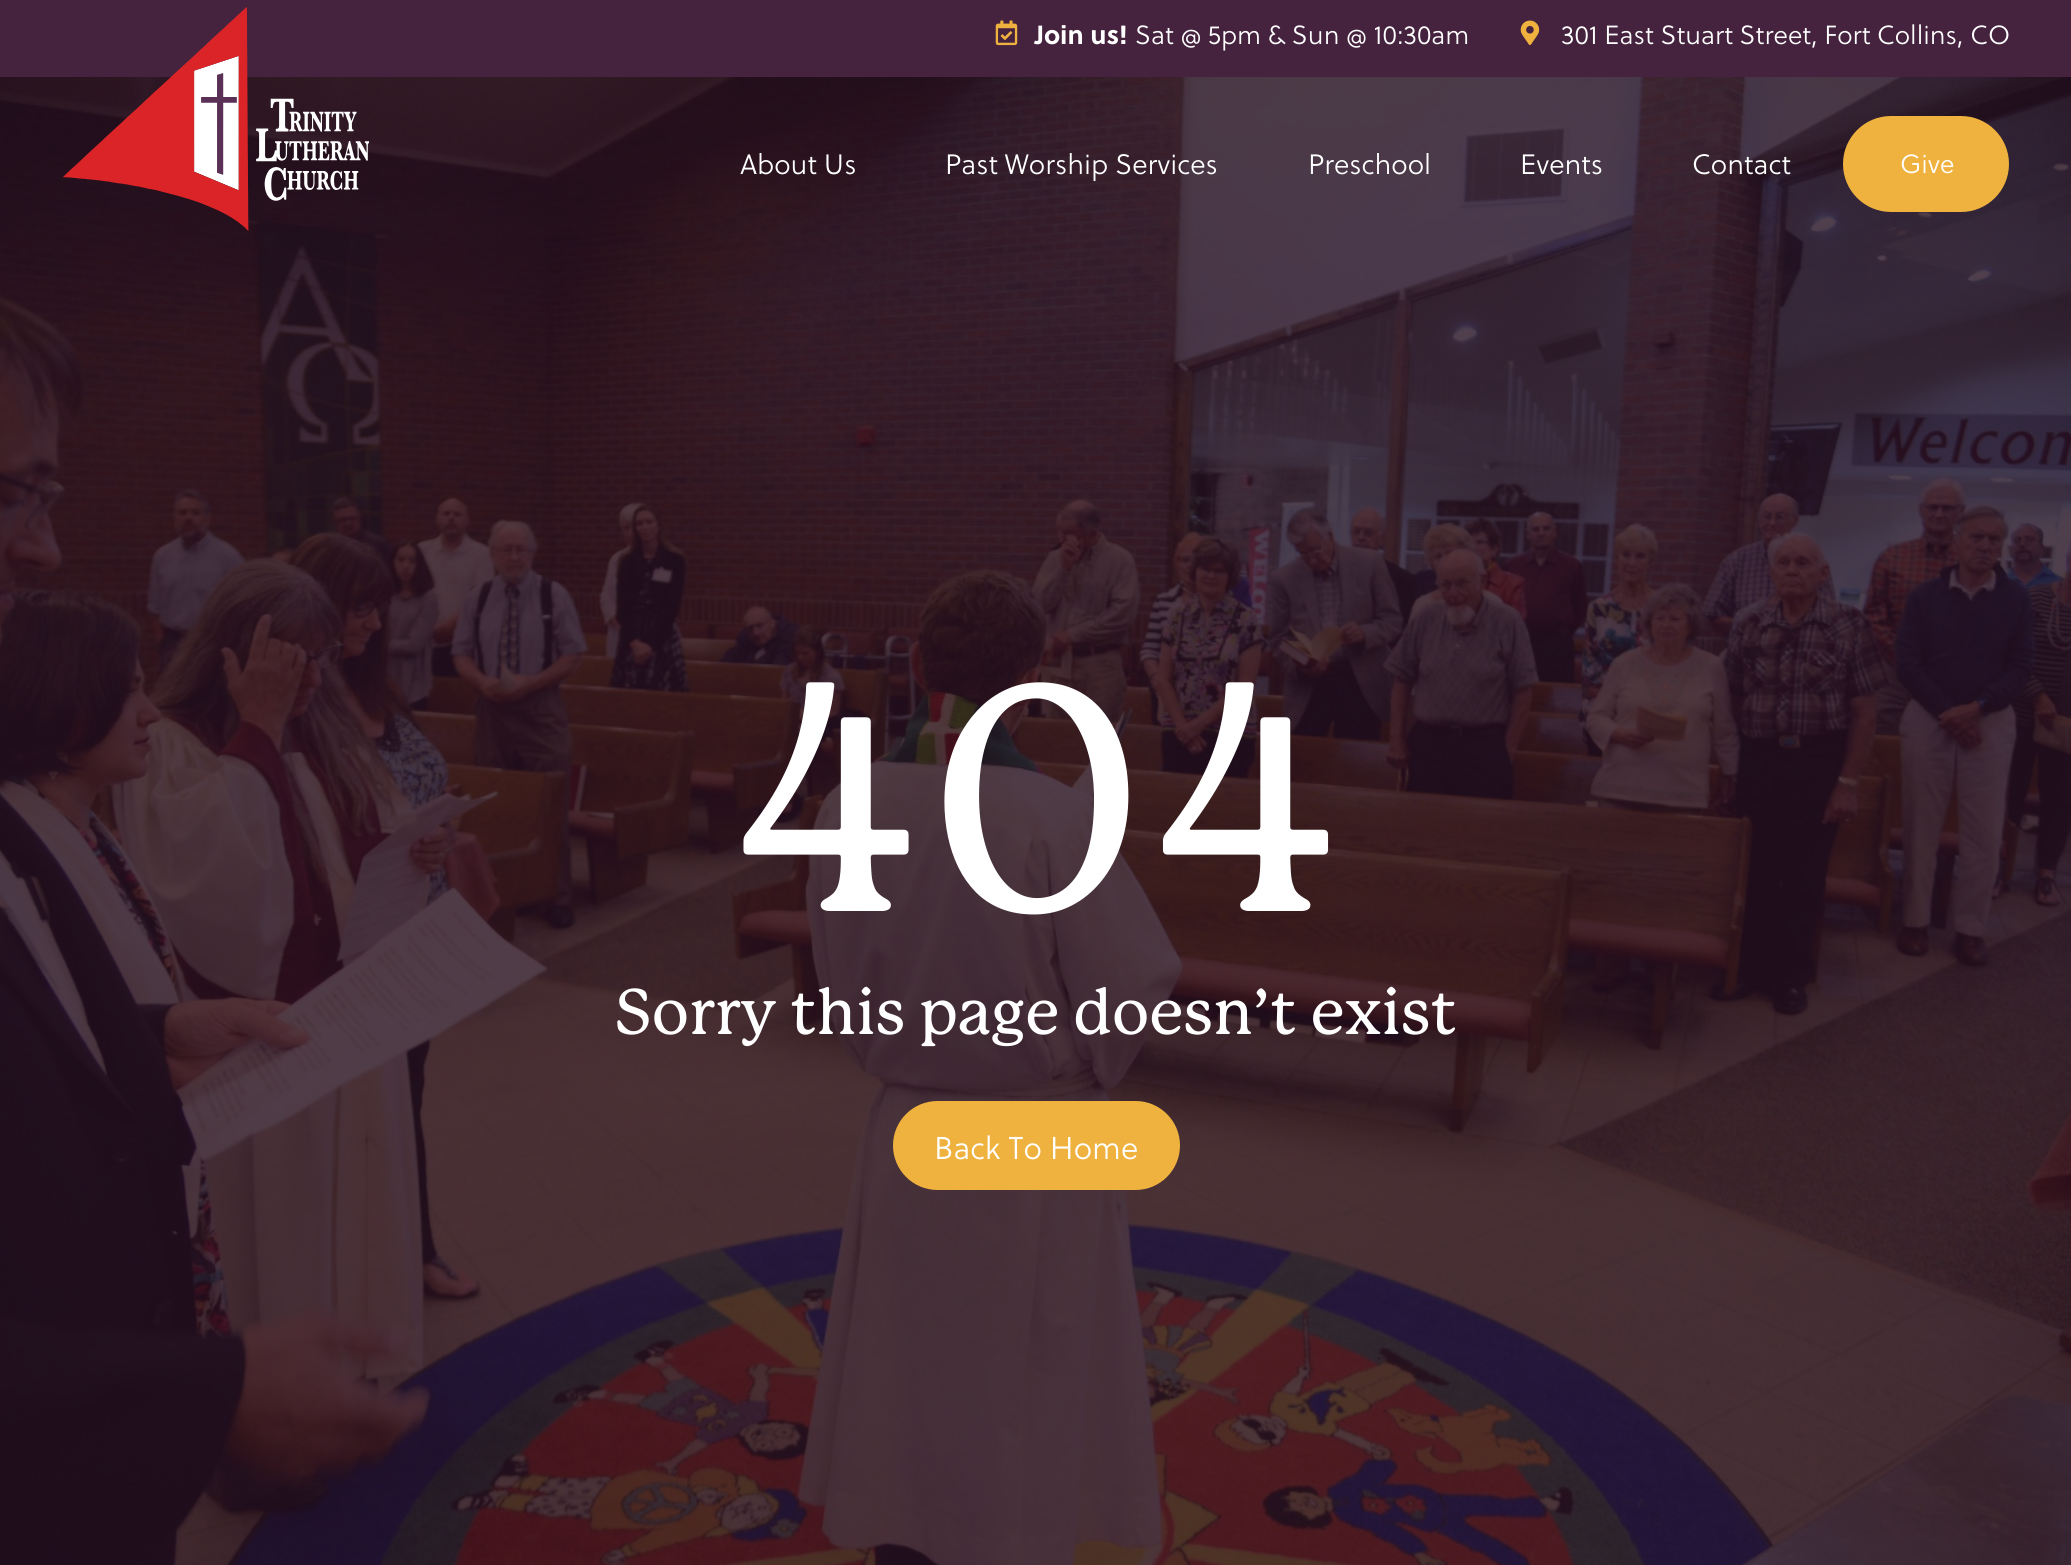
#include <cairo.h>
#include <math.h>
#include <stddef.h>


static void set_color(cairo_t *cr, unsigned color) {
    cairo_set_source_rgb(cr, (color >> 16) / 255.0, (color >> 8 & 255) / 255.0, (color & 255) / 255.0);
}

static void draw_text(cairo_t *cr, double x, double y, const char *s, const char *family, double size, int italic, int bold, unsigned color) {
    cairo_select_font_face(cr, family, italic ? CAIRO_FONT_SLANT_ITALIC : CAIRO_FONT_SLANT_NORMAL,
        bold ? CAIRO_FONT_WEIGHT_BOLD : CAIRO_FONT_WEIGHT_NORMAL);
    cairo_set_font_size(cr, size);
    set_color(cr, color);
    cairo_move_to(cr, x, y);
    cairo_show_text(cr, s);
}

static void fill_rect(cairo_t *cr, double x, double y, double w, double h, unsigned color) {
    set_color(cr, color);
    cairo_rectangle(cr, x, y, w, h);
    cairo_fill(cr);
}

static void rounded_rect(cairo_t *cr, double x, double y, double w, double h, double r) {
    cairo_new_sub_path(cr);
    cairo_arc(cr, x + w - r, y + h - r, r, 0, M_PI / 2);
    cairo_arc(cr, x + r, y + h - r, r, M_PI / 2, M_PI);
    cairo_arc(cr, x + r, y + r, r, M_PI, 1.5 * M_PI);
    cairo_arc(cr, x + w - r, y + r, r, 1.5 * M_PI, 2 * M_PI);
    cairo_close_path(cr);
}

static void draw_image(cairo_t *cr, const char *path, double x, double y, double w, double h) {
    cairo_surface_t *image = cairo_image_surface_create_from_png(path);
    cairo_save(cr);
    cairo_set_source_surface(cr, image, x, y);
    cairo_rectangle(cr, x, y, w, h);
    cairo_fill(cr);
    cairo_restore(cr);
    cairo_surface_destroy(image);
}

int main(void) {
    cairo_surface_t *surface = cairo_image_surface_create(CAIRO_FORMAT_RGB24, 2071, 1565);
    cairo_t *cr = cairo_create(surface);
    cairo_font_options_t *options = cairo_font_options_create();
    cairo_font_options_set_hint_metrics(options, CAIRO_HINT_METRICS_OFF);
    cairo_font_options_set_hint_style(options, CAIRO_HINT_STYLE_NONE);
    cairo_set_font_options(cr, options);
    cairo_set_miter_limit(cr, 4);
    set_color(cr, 0xFFFFFF);
    cairo_paint(cr);
    fill_rect(cr, 0, 0, 2071, 77, 0x45233E);
    draw_image(cr, "assets/img1.png", 995, 20, 23, 26);
    draw_text(cr, 1035, 44, "Join us!", "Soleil", 26.25, 0, 1, 0xFFFFFF);
    draw_text(cr, 1135, 44, "Sat @ 5pm & Sun @ 10:30am", "Soleil Light", 26.25, 0, 0, 0xFFFFFF);
    draw_image(cr, "assets/img2.png", 1520, 20, 20, 25);
    draw_text(cr, 1561, 44, "301 East Stuart Street, Fort Collins, CO", "Soleil Light", 26.25, 0, 0, 0xFFFFFF);
    draw_image(cr, "assets/img4.png", 0, 77, 2071, 1488);
    draw_image(cr, "assets/img3.png", 63, 7, 306, 224);
    draw_text(cr, 740, 174, "About Us", "Soleil Light", 28, 0, 0, 0xFFFFFF);
    draw_text(cr, 945, 174, "Past Worship Services", "Soleil Light", 28, 0, 0, 0xFFFFFF);
    draw_text(cr, 1308, 174, "Preschool", "Soleil Light", 28, 0, 0, 0xFFFFFF);
    draw_text(cr, 1520, 174, "Events", "Soleil Light", 28, 0, 0, 0xFFFFFF);
    draw_text(cr, 1692, 174, "Contact", "Soleil Light", 28, 0, 0, 0xFFFFFF);
    set_color(cr, 0xEFB23F);
    rounded_rect(cr, 1845, 118, 162, 92, 46);
    cairo_fill_preserve(cr);
    cairo_set_line_width(cr, 4);
    cairo_stroke(cr);
    draw_text(cr, 1900, 173, "Give", "Soleil Light", 26.25, 0, 0, 0xFFFFFF);
    draw_text(cr, 729, 911, "404", "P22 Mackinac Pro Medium", 315, 0, 0, 0xFFFFFF);
    draw_text(cr, 615, 1034, "Sorry this page doesn’t exist", "P22 Mackinac Pro Medium", 63, 0, 0, 0xFFFFFF);
    set_color(cr, 0xEFB23F);
    rounded_rect(cr, 893, 1101, 287, 89, 44.5);
    cairo_fill(cr);
    draw_text(cr, 934, 1159, "Back To Home", "Soleil Light", 31.5, 0, 0, 0xFFFFFF);
    cairo_surface_write_to_png(surface, "output.png");
    cairo_font_options_destroy(options);
    cairo_destroy(cr);
    cairo_surface_destroy(surface);
    return 0;
}
